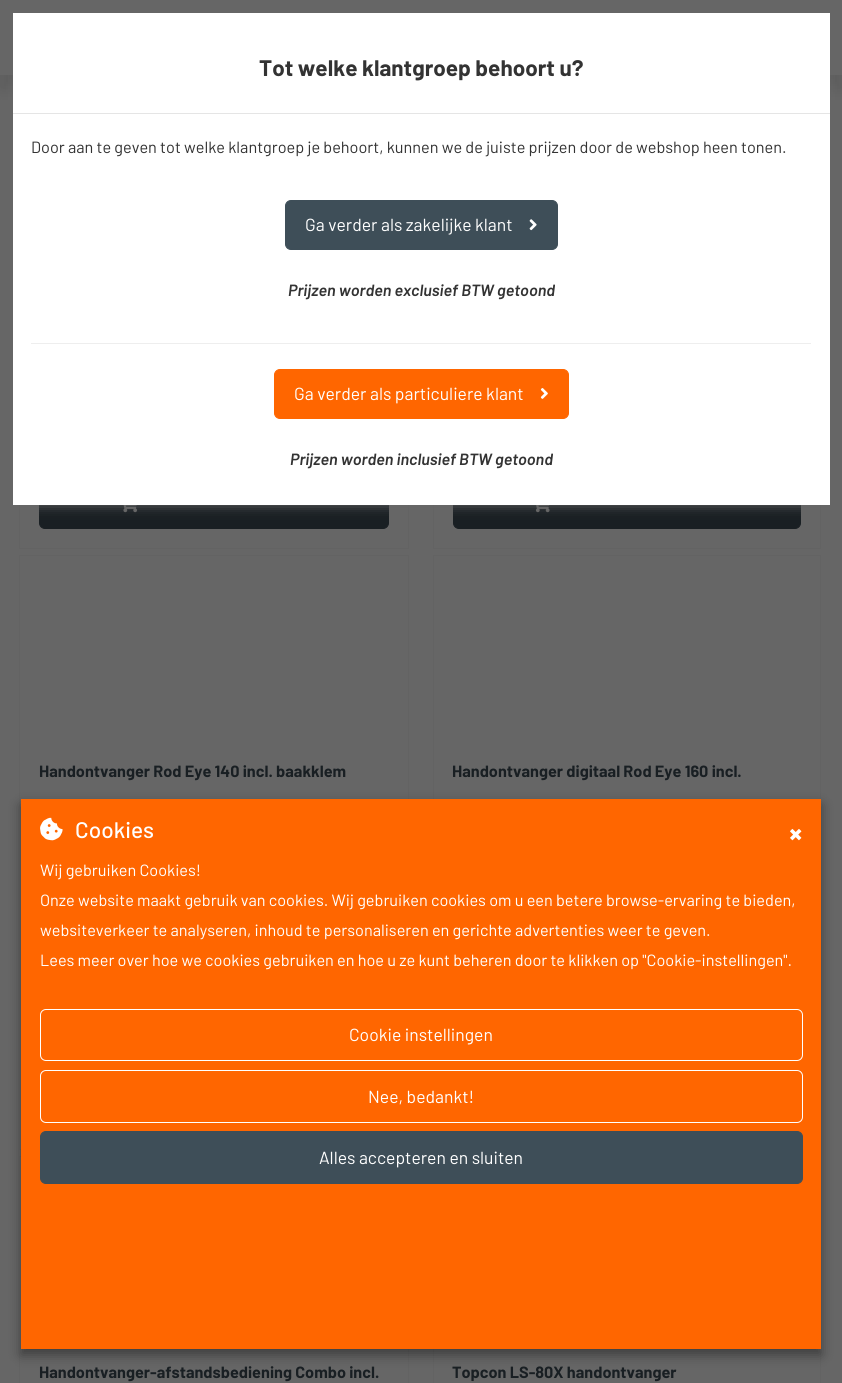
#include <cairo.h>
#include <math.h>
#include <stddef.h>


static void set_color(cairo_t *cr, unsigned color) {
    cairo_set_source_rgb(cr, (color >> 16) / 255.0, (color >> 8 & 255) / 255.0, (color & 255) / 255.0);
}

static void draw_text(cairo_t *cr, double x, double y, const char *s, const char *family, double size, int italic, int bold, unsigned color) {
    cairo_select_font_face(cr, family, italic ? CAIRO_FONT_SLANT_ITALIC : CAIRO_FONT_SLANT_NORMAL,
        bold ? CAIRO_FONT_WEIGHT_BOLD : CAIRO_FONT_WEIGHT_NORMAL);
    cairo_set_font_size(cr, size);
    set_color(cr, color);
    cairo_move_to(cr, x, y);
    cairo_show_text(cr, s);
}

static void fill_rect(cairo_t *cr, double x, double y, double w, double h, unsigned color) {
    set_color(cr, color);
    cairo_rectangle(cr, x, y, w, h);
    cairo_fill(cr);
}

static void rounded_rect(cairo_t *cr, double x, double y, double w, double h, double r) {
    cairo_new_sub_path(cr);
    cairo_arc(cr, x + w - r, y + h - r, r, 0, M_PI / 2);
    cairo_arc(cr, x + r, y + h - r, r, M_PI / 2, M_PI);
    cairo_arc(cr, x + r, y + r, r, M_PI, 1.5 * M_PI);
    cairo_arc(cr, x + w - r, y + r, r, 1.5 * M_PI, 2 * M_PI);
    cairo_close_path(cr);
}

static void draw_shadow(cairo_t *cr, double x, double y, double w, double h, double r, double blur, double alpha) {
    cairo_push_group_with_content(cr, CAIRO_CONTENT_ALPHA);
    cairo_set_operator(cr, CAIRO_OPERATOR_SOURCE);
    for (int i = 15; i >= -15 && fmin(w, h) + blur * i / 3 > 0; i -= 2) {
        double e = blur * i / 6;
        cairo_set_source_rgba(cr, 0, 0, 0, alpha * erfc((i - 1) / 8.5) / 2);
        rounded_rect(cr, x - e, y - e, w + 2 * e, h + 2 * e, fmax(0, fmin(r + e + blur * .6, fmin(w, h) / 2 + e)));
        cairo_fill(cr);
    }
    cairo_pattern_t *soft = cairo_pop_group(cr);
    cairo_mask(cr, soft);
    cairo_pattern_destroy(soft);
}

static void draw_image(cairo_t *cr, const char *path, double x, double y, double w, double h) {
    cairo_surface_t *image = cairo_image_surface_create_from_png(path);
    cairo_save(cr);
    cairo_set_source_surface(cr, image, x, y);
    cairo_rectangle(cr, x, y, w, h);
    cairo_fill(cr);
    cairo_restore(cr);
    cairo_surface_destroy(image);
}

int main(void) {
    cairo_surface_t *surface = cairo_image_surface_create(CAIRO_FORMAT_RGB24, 842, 1383);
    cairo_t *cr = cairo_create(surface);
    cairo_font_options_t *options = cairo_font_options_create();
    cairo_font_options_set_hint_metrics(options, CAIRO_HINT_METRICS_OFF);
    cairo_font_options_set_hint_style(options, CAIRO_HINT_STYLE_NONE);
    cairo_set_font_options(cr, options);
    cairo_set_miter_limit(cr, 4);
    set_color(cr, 0x666666);
    cairo_paint(cr);
    cairo_rectangle(cr, 19.5, -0.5, 389, 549);
    set_color(cr, 0x636363);
    cairo_set_line_width(cr, 1);
    cairo_stroke(cr);
    cairo_rectangle(cr, 433.5, -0.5, 387, 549);
    cairo_stroke(cr);
    set_color(cr, 0x000000);
    draw_shadow(cr, 0, 13, 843, 75, 0, 8, 0.11);
    fill_rect(cr, 0, 0, 842, 75, 0x666666);
    set_color(cr, 0x191F23);
    rounded_rect(cr, 39.5, 479.5, 349, 49, 5.5);
    cairo_fill_preserve(cr);
    cairo_stroke(cr);
    draw_image(cr, "assets/img3.png", 123, 505, 15, 8);
    rounded_rect(cr, 453.5, 479.5, 347, 49, 5.5);
    cairo_fill_preserve(cr);
    cairo_stroke(cr);
    draw_image(cr, "assets/img4.png", 535, 505, 15, 8);
    set_color(cr, 0x666666);
    draw_shadow(cr, 13, 13, 817, 492, 8, 6, 1);
    fill_rect(cr, 13, 13, 817, 100, 0xFFFFFF);
    fill_rect(cr, 13, 113, 817, 1, 0xE5E5E5);
    draw_text(cr, 259, 76, "Tot welke klantgroep behoort u?", "Barlow", 22.5, 0, 1, 0x333333);
    fill_rect(cr, 13, 114, 817, 391, 0xFFFFFF);
    draw_text(cr, 31, 153, "Door aan te geven tot welke klantgroep je behoort, kunnen we de juiste prijzen door de webshop heen tonen.", "Barlow", 16.25, 0, 0, 0x333333);
    set_color(cr, 0x3E4E58);
    rounded_rect(cr, 285.5, 200.5, 272, 49, 5.5);
    cairo_fill_preserve(cr);
    cairo_stroke(cr);
    draw_text(cr, 305, 231, "Ga verder als zakelijke klant", "Barlow", 17.5, 0, 0, 0xFFFFFF);
    draw_image(cr, "assets/img1.png", 529, 219, 8, 12);
    draw_text(cr, 288, 296, "Prijzen worden exclusief BTW getoond", "Barlow SemiBold", 16.25, 1, 0, 0x333333);
    fill_rect(cr, 31, 343, 780, 1, 0xEEEEEE);
    set_color(cr, 0xFF6600);
    rounded_rect(cr, 274.5, 369.5, 294, 49, 5.5);
    cairo_fill_preserve(cr);
    cairo_stroke(cr);
    draw_text(cr, 294, 400, "Ga verder als particuliere klant", "Barlow", 17.5, 0, 0, 0xFFFFFF);
    draw_image(cr, "assets/img2.png", 540, 388, 8, 11);
    draw_text(cr, 290, 465, "Prijzen worden inclusief BTW getoond", "Barlow SemiBold", 16.25, 1, 0, 0x333333);
    cairo_rectangle(cr, 19.5, 555.5, 389, 594);
    set_color(cr, 0x636363);
    cairo_stroke(cr);
    draw_text(cr, 39, 777, "Handontvanger Rod Eye 140 incl. baakklem", "Barlow", 16.25, 0, 1, 0x191F23);
    cairo_rectangle(cr, 433.5, 555.5, 387, 594);
    set_color(cr, 0x636363);
    cairo_stroke(cr);
    draw_text(cr, 452, 777, "Handontvanger digitaal Rod Eye 160 incl.", "Barlow", 16.25, 0, 1, 0x191F23);
    cairo_rectangle(cr, 19.5, 1156.5, 389, 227);
    set_color(cr, 0x636363);
    cairo_stroke(cr);
    draw_text(cr, 39, 1378, "Handontvanger-afstandsbediening Combo incl.", "Barlow", 16.25, 0, 1, 0x191F23);
    cairo_rectangle(cr, 433.5, 1156.5, 387, 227);
    set_color(cr, 0x636363);
    cairo_stroke(cr);
    draw_text(cr, 452, 1378, "Topcon LS-80X handontvanger", "Barlow", 16.25, 0, 1, 0x191F23);
    set_color(cr, 0x000000);
    draw_shadow(cr, 21, 805, 800, 550, 0, 6, 0.4);
    fill_rect(cr, 21, 799, 800, 550, 0xFF6600);
    draw_image(cr, "assets/img5.png", 40, 817, 23, 24);
    draw_text(cr, 75, 838, "Cookies", "Barlow Medium", 22.5, 0, 0, 0xFFFFFF);
    draw_text(cr, 40, 876, "Wij gebruiken Cookies!", "Barlow", 16.25, 0, 0, 0xFFFFFF);
    draw_text(cr, 40, 906, "Onze website maakt gebruik van cookies. Wij gebruiken cookies om u een betere browse-ervaring te bieden,", "Barlow", 16.25, 0, 0, 0xFFFFFF);
    draw_text(cr, 40, 936, "websiteverkeer te analyseren, inhoud te personaliseren en gerichte advertenties weer te geven.", "Barlow", 16.25, 0, 0, 0xFFFFFF);
    draw_text(cr, 40, 966, "Lees meer over hoe we cookies gebruiken en hoe u ze kunt beheren door te klikken op \"Cookie-instellingen\".", "Barlow", 16.25, 0, 0, 0xFFFFFF);
    draw_text(cr, 789, 844, "×", "Barlow", 30, 0, 1, 0xFFFFFF);
    rounded_rect(cr, 40.5, 1009.5, 762, 51, 5.5);
    cairo_stroke(cr);
    draw_text(cr, 349, 1041, "Cookie instellingen", "Barlow", 17.5, 0, 0, 0xFFFFFF);
    rounded_rect(cr, 40.5, 1070.5, 762, 52, 5.5);
    cairo_stroke(cr);
    draw_text(cr, 368, 1103, "Nee, bedankt!", "Barlow", 17.5, 0, 0, 0xFFFFFF);
    set_color(cr, 0x3E4E58);
    rounded_rect(cr, 40.5, 1131.5, 762, 52, 5.5);
    cairo_fill_preserve(cr);
    cairo_stroke(cr);
    draw_text(cr, 319, 1164, "Alles accepteren en sluiten", "Barlow", 17.5, 0, 0, 0xFFFFFF);
    cairo_surface_write_to_png(surface, "output.png");
    cairo_font_options_destroy(options);
    cairo_destroy(cr);
    cairo_surface_destroy(surface);
    return 0;
}
